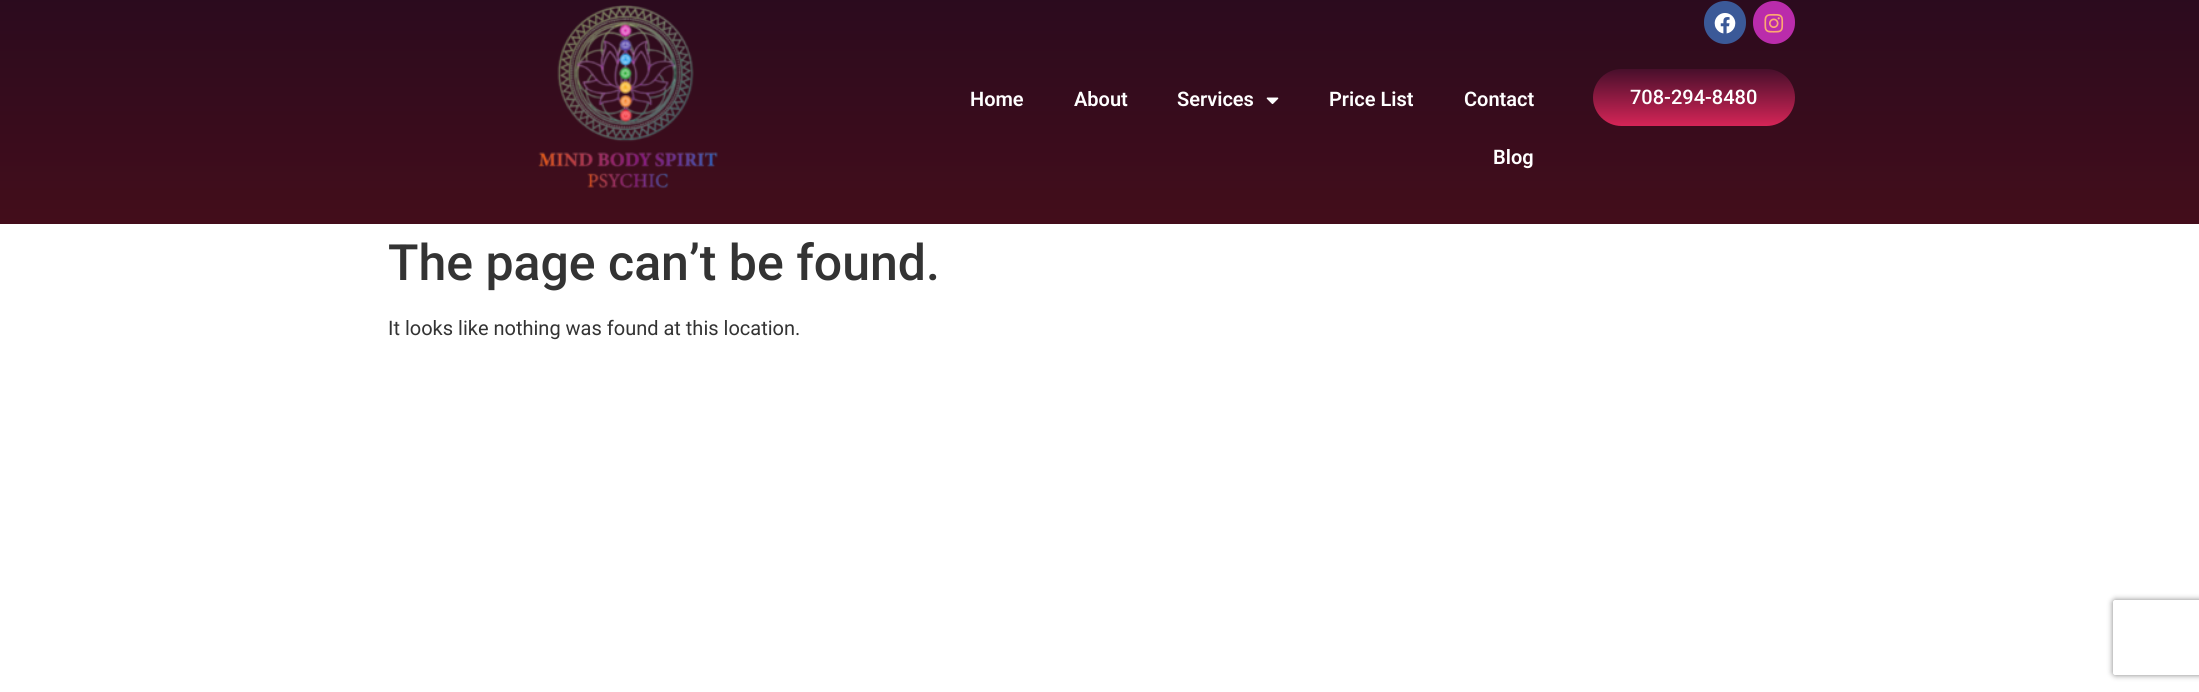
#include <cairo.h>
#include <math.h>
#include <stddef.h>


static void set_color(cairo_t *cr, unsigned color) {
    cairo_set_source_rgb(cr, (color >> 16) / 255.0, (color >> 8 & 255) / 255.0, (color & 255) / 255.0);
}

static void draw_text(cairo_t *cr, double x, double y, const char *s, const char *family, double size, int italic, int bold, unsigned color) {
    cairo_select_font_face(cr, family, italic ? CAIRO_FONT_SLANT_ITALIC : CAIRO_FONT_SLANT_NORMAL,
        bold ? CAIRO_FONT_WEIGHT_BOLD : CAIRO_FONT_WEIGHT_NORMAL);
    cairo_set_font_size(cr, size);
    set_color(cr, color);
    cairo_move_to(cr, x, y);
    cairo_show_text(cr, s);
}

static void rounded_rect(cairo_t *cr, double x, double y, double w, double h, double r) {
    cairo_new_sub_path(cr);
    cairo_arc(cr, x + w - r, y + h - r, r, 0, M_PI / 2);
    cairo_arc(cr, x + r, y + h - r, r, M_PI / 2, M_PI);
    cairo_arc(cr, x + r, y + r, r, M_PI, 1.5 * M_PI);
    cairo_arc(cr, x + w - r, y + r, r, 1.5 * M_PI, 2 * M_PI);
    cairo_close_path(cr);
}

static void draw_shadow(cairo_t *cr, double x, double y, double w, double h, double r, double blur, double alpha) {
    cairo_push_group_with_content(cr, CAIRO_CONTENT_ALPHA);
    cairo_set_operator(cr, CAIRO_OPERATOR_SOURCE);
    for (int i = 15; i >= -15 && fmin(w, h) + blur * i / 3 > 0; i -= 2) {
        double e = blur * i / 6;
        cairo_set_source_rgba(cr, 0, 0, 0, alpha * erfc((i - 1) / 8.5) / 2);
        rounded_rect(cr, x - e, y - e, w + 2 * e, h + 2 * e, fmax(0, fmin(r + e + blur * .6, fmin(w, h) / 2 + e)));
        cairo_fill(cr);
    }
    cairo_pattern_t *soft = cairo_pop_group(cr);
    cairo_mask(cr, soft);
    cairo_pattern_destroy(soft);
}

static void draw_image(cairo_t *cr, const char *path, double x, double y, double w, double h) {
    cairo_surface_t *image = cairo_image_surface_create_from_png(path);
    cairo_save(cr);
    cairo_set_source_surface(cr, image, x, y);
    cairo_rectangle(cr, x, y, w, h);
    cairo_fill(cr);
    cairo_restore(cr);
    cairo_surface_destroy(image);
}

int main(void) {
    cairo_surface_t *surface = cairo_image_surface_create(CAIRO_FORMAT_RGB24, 2199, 692);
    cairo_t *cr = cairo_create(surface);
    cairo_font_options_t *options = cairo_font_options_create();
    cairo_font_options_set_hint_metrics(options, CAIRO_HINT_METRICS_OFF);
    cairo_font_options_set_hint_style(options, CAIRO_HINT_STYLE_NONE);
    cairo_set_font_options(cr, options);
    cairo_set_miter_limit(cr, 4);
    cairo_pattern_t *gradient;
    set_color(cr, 0xFFFFFF);
    cairo_paint(cr);
    gradient = cairo_pattern_create_linear(1100, -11, 1100, 224);
    cairo_pattern_add_color_stop_rgba(gradient, 0, 0.165, 0.043, 0.118, 1);
    cairo_pattern_add_color_stop_rgba(gradient, 1, 0.263, 0.051, 0.106, 1);
    cairo_set_source(cr, gradient);
    cairo_pattern_destroy(gradient);
    cairo_rectangle(cr, 0, 0, 2199, 224);
    cairo_fill(cr);
    draw_image(cr, "assets/img1.png", 538, 5, 180, 184);
    draw_text(cr, 970, 106, "Home", "Roboto SemiBold", 20, 0, 0, 0xFFFFFF);
    draw_text(cr, 1074, 106, "About", "Roboto SemiBold", 20, 0, 0, 0xFFFFFF);
    draw_text(cr, 1177, 106, "Services", "Roboto SemiBold", 20, 0, 0, 0xFFFFFF);
    draw_image(cr, "assets/img2.png", 1266, 97, 13, 8);
    draw_text(cr, 1329, 106, "Price List", "Roboto SemiBold", 20, 0, 0, 0xFFFFFF);
    draw_text(cr, 1464, 106, "Contact", "Roboto SemiBold", 20, 0, 0, 0xFFFFFF);
    draw_text(cr, 1493, 164, "Blog", "Roboto SemiBold", 20, 0, 0, 0xFFFFFF);
    set_color(cr, 0x3B5998);
    rounded_rect(cr, 1704, 1, 42, 43, 21);
    cairo_fill(cr);
    draw_image(cr, "assets/img3.png", 1714, 13, 22, 21);
    set_color(cr, 0xBA2CAB);
    rounded_rect(cr, 1753, 1, 42, 43, 21);
    cairo_fill(cr);
    draw_image(cr, "assets/img4.png", 1764, 13, 20, 20);
    gradient = cairo_pattern_create_linear(1694, 69, 1694, 126);
    cairo_pattern_add_color_stop_rgba(gradient, 0, 0.278, 0.059, 0.169, 1);
    cairo_pattern_add_color_stop_rgba(gradient, 1, 0.835, 0.145, 0.341, 1);
    cairo_set_source(cr, gradient);
    cairo_pattern_destroy(gradient);
    rounded_rect(cr, 1593, 69, 202, 57, 28.5);
    cairo_fill(cr);
    draw_text(cr, 1630, 104, "708-294-8480", "Roboto Medium", 20, 0, 0, 0xFFFFFF);
    draw_text(cr, 388, 280, "The page can’t be found.", "Roboto Medium", 50, 0, 0, 0x333333);
    draw_text(cr, 388, 335, "It looks like nothing was found at this location.", "Roboto", 20, 0, 0, 0x333333);
    cairo_save(cr);
    cairo_set_fill_rule(cr, CAIRO_FILL_RULE_EVEN_ODD);
    cairo_new_path(cr);
    cairo_move_to(cr, 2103, 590);
    cairo_line_to(cr, 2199, 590);
    cairo_line_to(cr, 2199, 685);
    cairo_line_to(cr, 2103, 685);
    cairo_close_path(cr);
    cairo_move_to(cr, 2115.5, 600);
    cairo_line_to(cr, 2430.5, 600);
    cairo_curve_to(cr, 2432, 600, 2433, 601, 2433, 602.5);
    cairo_line_to(cr, 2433, 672.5);
    cairo_curve_to(cr, 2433, 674, 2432, 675, 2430.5, 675);
    cairo_line_to(cr, 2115.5, 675);
    cairo_curve_to(cr, 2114, 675, 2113, 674, 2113, 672.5);
    cairo_line_to(cr, 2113, 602.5);
    cairo_curve_to(cr, 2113, 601, 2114, 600, 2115.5, 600);
    cairo_close_path(cr);
    cairo_clip(cr);
    set_color(cr, 0x808080);
    draw_shadow(cr, 2113, 600, 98, 75, 2.5, 3, 1);
    cairo_restore(cr);
    cairo_surface_write_to_png(surface, "output.png");
    cairo_font_options_destroy(options);
    cairo_destroy(cr);
    cairo_surface_destroy(surface);
    return 0;
}
